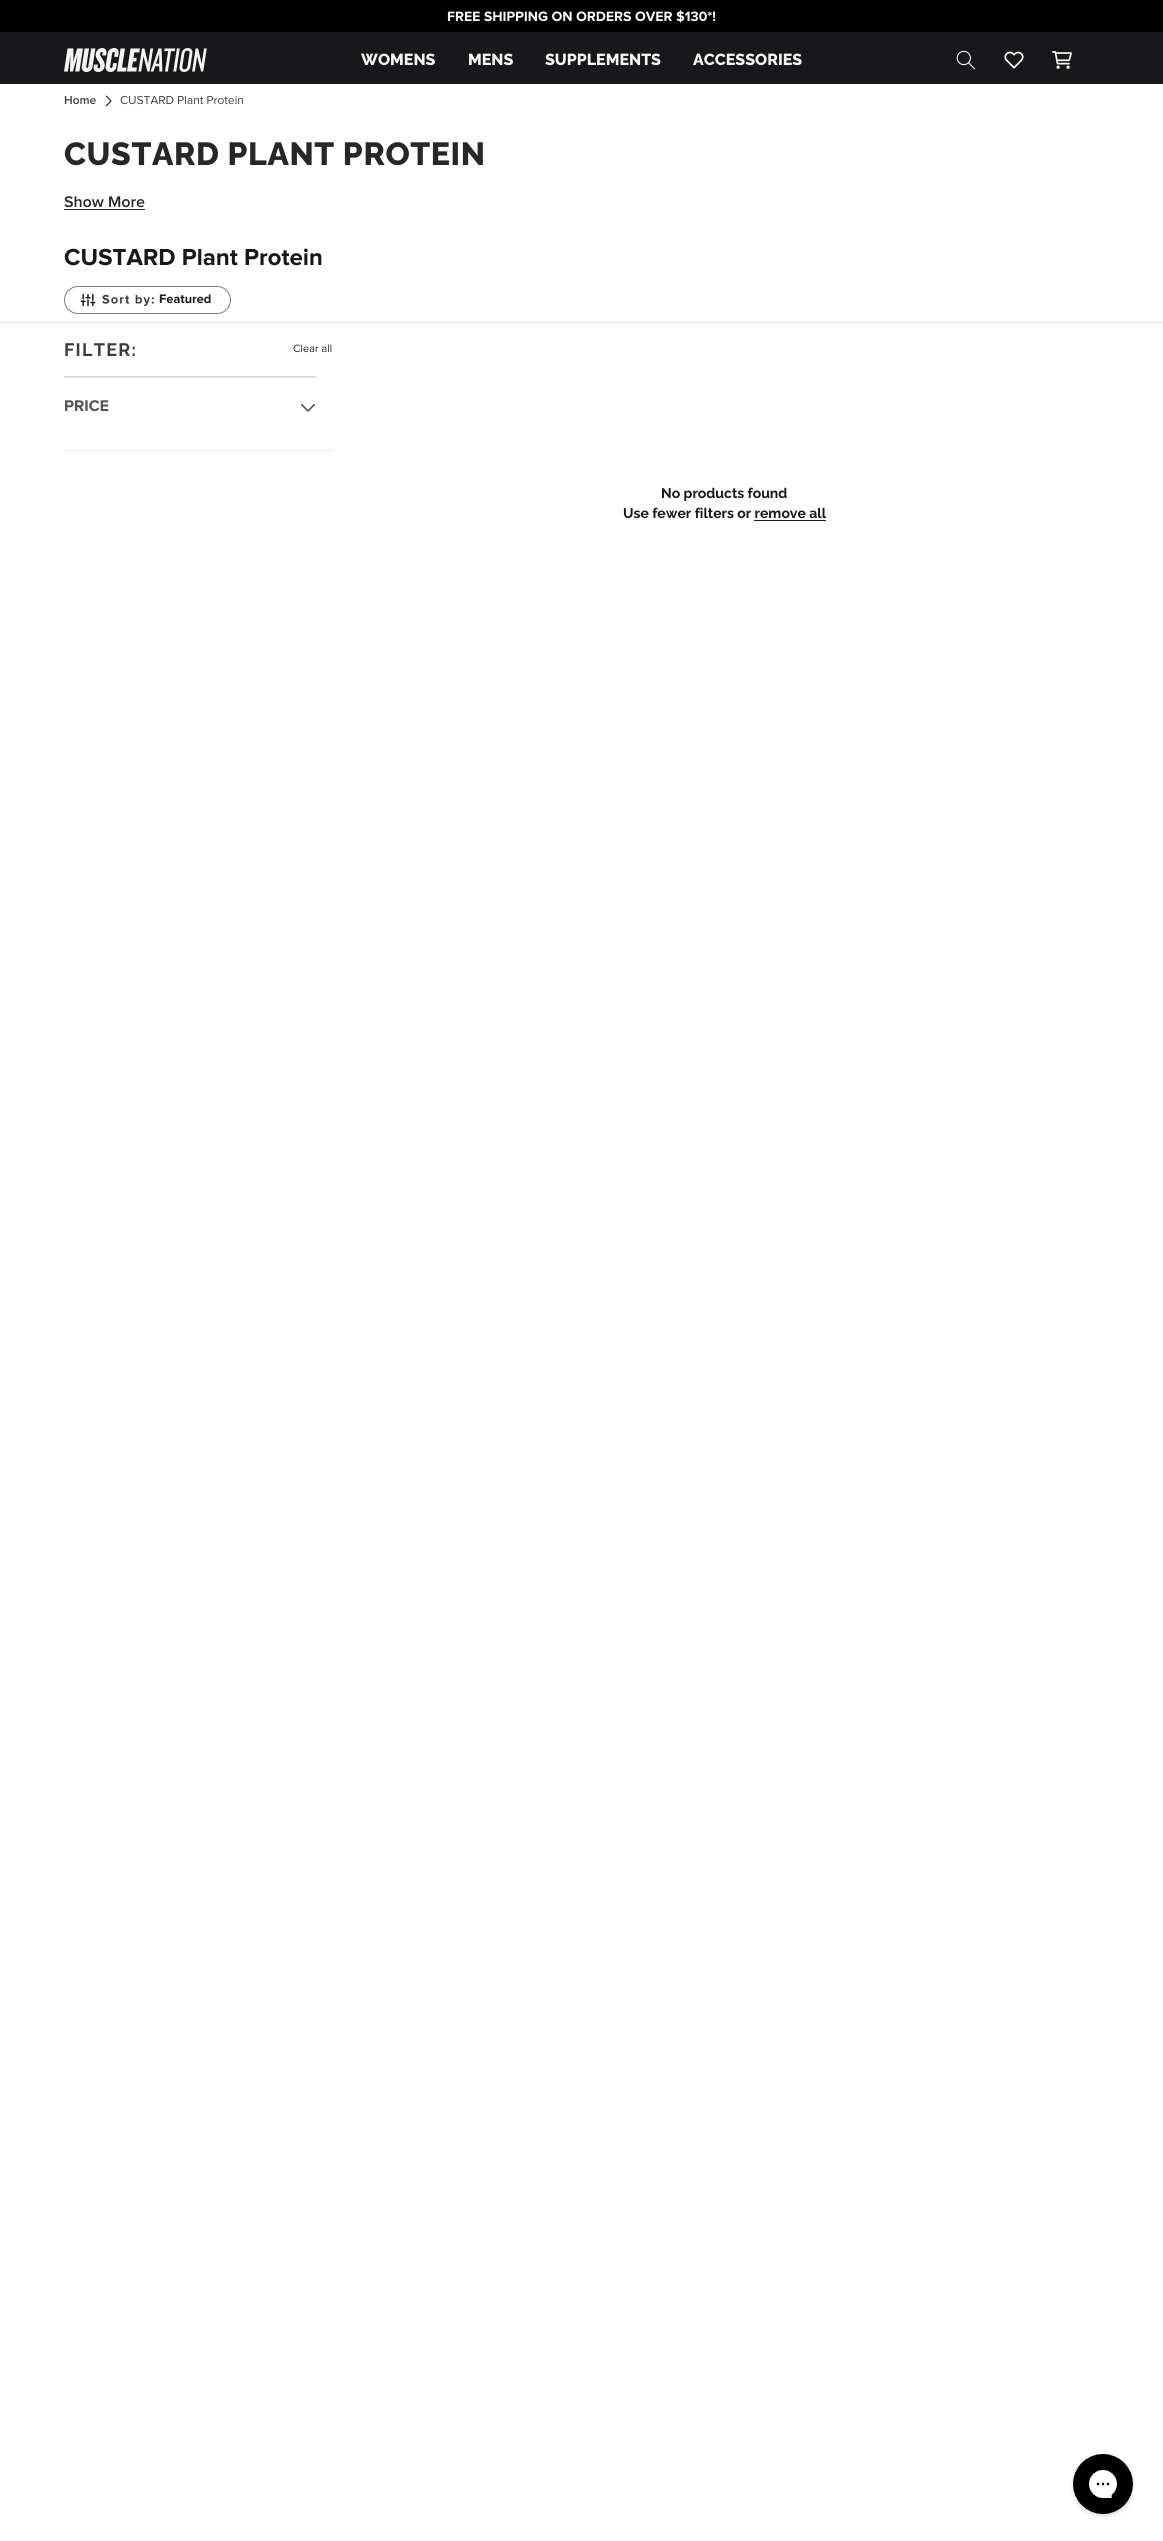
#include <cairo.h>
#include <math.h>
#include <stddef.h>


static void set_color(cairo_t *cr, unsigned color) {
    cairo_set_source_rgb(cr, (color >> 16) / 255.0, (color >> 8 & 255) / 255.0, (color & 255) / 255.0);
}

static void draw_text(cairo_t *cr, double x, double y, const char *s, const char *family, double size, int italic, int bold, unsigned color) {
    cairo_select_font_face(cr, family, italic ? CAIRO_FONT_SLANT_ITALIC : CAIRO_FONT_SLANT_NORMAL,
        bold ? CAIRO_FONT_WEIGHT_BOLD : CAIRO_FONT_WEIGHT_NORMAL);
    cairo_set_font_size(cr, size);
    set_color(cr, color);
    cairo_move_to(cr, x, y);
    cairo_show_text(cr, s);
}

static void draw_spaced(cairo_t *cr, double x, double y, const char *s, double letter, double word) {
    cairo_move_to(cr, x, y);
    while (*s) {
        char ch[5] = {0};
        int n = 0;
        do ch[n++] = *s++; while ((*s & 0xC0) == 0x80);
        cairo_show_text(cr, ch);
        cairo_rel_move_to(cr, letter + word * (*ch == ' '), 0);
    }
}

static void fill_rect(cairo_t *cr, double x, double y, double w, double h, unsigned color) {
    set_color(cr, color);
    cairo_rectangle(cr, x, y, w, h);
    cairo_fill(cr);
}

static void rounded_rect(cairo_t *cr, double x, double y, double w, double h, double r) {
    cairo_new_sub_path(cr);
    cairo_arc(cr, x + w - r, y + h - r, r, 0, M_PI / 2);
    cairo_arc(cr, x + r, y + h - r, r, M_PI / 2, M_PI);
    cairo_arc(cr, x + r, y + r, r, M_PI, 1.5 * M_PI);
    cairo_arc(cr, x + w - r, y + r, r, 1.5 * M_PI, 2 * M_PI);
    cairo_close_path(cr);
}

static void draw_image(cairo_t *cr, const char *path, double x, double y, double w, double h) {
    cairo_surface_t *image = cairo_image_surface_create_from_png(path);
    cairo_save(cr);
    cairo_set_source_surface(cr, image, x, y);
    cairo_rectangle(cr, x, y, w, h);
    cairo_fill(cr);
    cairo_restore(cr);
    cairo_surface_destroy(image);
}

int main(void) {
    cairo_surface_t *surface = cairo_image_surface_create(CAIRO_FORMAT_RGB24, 1163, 2541);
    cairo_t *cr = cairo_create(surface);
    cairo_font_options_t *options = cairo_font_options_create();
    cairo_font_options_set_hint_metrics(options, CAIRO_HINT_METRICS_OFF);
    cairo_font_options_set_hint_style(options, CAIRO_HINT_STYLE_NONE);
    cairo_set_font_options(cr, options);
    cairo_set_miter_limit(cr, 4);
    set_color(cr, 0xFFFFFF);
    cairo_paint(cr);
    fill_rect(cr, 0, 32, 1163, 52, 0x18181B);
    fill_rect(cr, 0, 0, 1163, 32, 0x000000);
    draw_image(cr, "assets/img1.png", 447, 10, 269, 13);
    draw_image(cr, "assets/img2.png", 64, 48, 143, 24);
    draw_text(cr, 361, 65, "WOMENS", "Raleway ExtraBold", 16, 0, 0, 0xF4F4F5);
    draw_text(cr, 468, 65, "MENS", "Raleway ExtraBold", 16, 0, 0, 0xF4F4F5);
    draw_text(cr, 545, 65, "SUPPLEMENTS", "Raleway ExtraBold", 16, 0, 0, 0xF4F4F5);
    draw_text(cr, 693, 65, "ACCESSORIES", "Raleway ExtraBold", 16, 0, 0, 0xF4F4F5);
    draw_image(cr, "assets/img3.png", 956, 50, 19, 20);
    draw_image(cr, "assets/img4.png", 1004, 51, 20, 18);
    draw_image(cr, "assets/img5.png", 1052, 51, 20, 18);
    draw_image(cr, "assets/img6.png", 64, 96, 32, 9);
    draw_image(cr, "assets/img7.png", 105, 95, 7, 12);
    draw_image(cr, "assets/img8.png", 120, 95, 123, 10);
    cairo_set_font_size(cr, 32);
    set_color(cr, 0x27272A);
    draw_spaced(cr, 64, 165, "CUSTARD PLANT PROTEIN", 0.6, 0);
    draw_image(cr, "assets/img9.png", 64, 196, 81, 12);
    fill_rect(cr, 64, 209, 81, 1, 0x27272A);
    draw_image(cr, "assets/img10.png", 64, 248, 258, 18);
    fill_rect(cr, 0, 322, 1163, 1, 0xE8E8E8);
    rounded_rect(cr, 64.5, 286.5, 166, 27, 13.5);
    set_color(cr, 0x808082);
    cairo_set_line_width(cr, 1);
    cairo_stroke(cr);
    draw_image(cr, "assets/img11.png", 159, 294, 52, 10);
    draw_image(cr, "assets/img12.png", 80, 294, 16, 13);
    draw_image(cr, "assets/img13.png", 102, 294, 52, 12);
    fill_rect(cr, 64, 450, 270, 1, 0xEDEDED);
    cairo_select_font_face(cr, "Raleway", CAIRO_FONT_SLANT_NORMAL, CAIRO_FONT_WEIGHT_BOLD);
    cairo_set_font_size(cr, 18);
    set_color(cr, 0x3B3B3D);
    draw_spaced(cr, 64, 356, "FILTER:", 1.25, 0);
    draw_image(cr, "assets/img14.png", 293, 344, 39, 9);
    fill_rect(cr, 64, 376, 252, 1, 0xD4D4D8);
    fill_rect(cr, 64, 377, 252, 1, 0xE8E8E8);
    draw_image(cr, "assets/img15.png", 65, 400, 44, 12);
    draw_image(cr, "assets/img16.png", 300, 403, 16, 9);
    draw_text(cr, 661, 498, "No products found", "Raleway", 14, 0, 1, 0x18181B);
    draw_text(cr, 623, 518, "Use fewer filters or remove all", "Raleway", 14, 0, 1, 0x18181B);
    fill_rect(cr, 754, 520, 72, 1, 0x18181B);
    draw_image(cr, "assets/img17.png", 1071, 2454, 64, 64);
    cairo_surface_write_to_png(surface, "output.png");
    cairo_font_options_destroy(options);
    cairo_destroy(cr);
    cairo_surface_destroy(surface);
    return 0;
}
